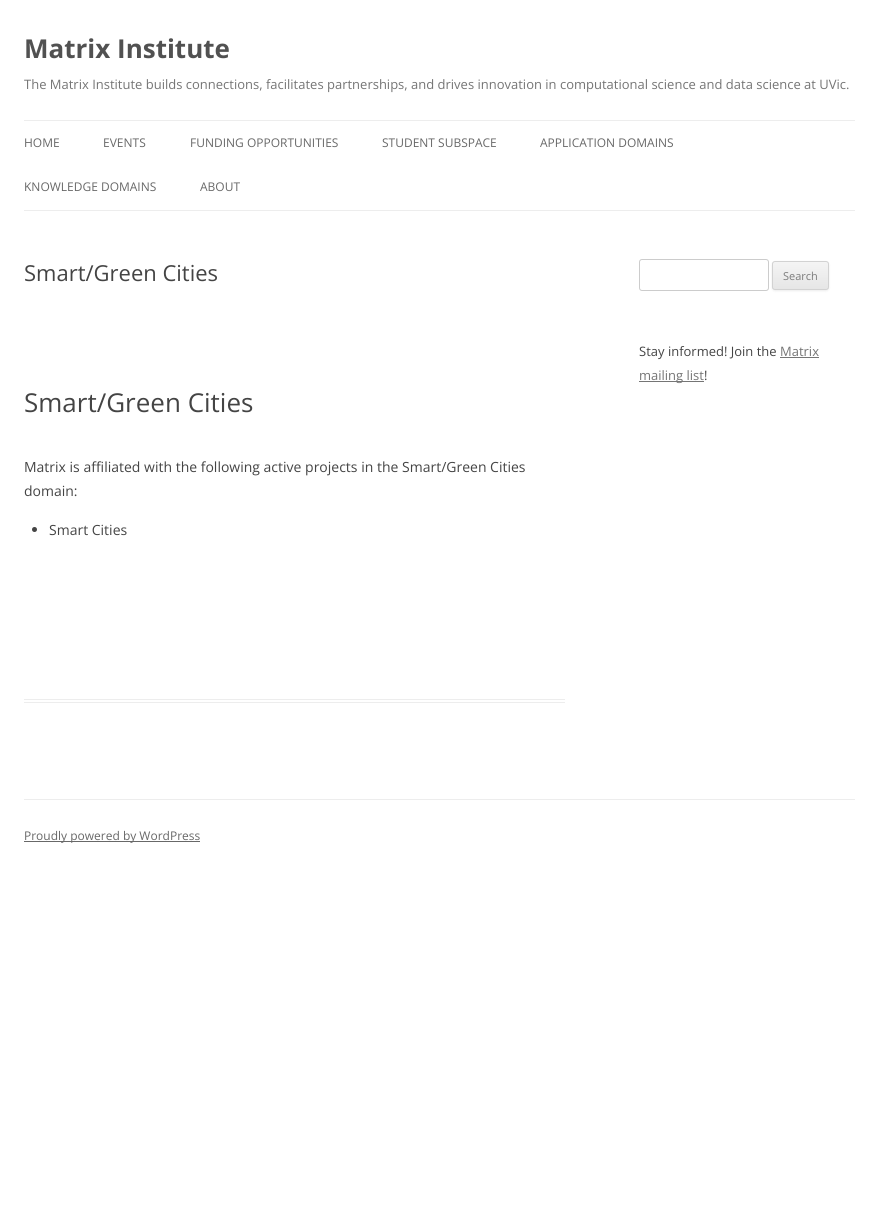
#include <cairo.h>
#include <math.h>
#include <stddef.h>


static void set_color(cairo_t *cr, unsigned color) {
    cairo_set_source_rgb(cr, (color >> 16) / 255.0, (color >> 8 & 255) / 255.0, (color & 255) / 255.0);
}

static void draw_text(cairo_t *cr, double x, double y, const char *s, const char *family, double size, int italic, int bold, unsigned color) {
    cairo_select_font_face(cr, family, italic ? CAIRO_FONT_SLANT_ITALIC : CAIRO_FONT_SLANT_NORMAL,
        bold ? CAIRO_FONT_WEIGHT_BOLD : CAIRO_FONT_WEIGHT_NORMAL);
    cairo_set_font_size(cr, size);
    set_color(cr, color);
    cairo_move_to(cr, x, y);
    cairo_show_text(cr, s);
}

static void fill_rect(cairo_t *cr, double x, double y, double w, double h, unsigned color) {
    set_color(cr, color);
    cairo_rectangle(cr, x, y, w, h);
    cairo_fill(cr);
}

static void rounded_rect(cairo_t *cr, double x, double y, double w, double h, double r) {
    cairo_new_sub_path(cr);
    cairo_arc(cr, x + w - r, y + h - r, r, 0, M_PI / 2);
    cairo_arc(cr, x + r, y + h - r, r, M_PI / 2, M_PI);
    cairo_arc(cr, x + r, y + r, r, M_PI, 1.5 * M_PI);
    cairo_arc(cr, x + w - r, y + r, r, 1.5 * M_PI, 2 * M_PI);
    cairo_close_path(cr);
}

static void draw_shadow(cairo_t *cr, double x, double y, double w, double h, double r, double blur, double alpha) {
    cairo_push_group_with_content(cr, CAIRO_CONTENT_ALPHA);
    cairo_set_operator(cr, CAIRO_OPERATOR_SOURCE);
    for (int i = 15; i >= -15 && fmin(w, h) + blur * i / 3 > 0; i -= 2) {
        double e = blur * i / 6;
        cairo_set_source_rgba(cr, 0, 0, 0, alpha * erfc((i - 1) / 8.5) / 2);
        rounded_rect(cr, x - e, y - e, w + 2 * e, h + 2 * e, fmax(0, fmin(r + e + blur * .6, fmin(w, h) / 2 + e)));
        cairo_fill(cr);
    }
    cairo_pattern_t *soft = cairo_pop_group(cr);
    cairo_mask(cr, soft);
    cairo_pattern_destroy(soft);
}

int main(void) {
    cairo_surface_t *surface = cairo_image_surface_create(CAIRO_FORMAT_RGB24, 879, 1211);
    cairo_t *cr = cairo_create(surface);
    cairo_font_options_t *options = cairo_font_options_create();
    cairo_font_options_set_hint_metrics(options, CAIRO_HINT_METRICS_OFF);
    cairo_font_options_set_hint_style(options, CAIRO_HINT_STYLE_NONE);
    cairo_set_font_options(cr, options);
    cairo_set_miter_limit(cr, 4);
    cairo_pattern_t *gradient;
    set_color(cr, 0xFFFFFF);
    cairo_paint(cr);
    draw_text(cr, 24, 58, "Matrix Institute", "Open Sans", 26, 0, 1, 0x515151);
    draw_text(cr, 24, 89, "The Matrix Institute builds connections, facilitates partnerships, and drives innovation in computational science and data science at UVic.", "Open Sans", 13, 0, 0, 0x757575);
    fill_rect(cr, 24, 120, 831, 1, 0xEDEDED);
    fill_rect(cr, 24, 210, 831, 1, 0xEDEDED);
    draw_text(cr, 24, 147, "HOME", "Open Sans", 12, 0, 0, 0x686868);
    draw_text(cr, 103, 147, "EVENTS", "Open Sans", 12, 0, 0, 0x686868);
    draw_text(cr, 190, 147, "FUNDING OPPORTUNITIES", "Open Sans", 12, 0, 0, 0x686868);
    draw_text(cr, 382, 147, "STUDENT SUBSPACE", "Open Sans", 12, 0, 0, 0x686868);
    draw_text(cr, 540, 147, "APPLICATION DOMAINS", "Open Sans", 12, 0, 0, 0x686868);
    draw_text(cr, 24, 191, "KNOWLEDGE DOMAINS", "Open Sans", 12, 0, 0, 0x686868);
    draw_text(cr, 200, 191, "ABOUT", "Open Sans", 12, 0, 0, 0x686868);
    fill_rect(cr, 24, 699, 541, 1, 0xEDEDED);
    fill_rect(cr, 24, 702, 541, 1, 0xEDEDED);
    draw_text(cr, 24, 281, "Smart/Green Cities", "Open Sans", 22, 0, 0, 0x444444);
    draw_text(cr, 24, 412, "Smart/Green Cities", "Open Sans", 26, 0, 0, 0x444444);
    draw_text(cr, 24, 472, "Matrix is affiliated with the following active projects in the Smart/Green Cities", "Open Sans", 14, 0, 0, 0x444444);
    draw_text(cr, 24, 496, "domain:", "Open Sans", 14, 0, 0, 0x444444);
    cairo_new_path(cr);
    cairo_arc(cr, 34.5, 529.5, 2.5, 0, 2 * M_PI);
    cairo_fill(cr);
    draw_text(cr, 49, 535, "Smart Cities", "Open Sans", 14, 0, 0, 0x444444);
    rounded_rect(cr, 639.5, 259.5, 129, 31, 2.5);
    set_color(cr, 0xCCCCCC);
    cairo_set_line_width(cr, 1);
    cairo_stroke(cr);
    set_color(cr, 0x404040);
    draw_shadow(cr, 772, 262, 57, 29, 3, 1, 0.1);
    cairo_save(cr);
    rounded_rect(cr, 772, 261, 57, 29, 3);
    cairo_clip(cr);
    gradient = cairo_pattern_create_linear(801, 262, 801, 289);
    cairo_pattern_add_color_stop_rgba(gradient, 0, 0.957, 0.957, 0.957, 1);
    cairo_pattern_add_color_stop_rgba(gradient, 1, 0.902, 0.902, 0.902, 1);
    cairo_set_source(cr, gradient);
    cairo_pattern_destroy(gradient);
    cairo_rectangle(cr, 772, 262, 57, 27);
    cairo_fill(cr);
    cairo_restore(cr);
    rounded_rect(cr, 772.5, 261.5, 56, 28, 2.5);
    set_color(cr, 0xD2D2D2);
    cairo_stroke(cr);
    draw_text(cr, 783, 280, "Search", "Open Sans", 11, 0, 0, 0x7C7C7C);
    draw_text(cr, 639, 356, "Stay informed! Join the", "Open Sans", 13, 0, 0, 0x444444);
    draw_text(cr, 780, 356, "Matrix", "Open Sans", 13, 0, 0, 0x757575);
    fill_rect(cr, 780, 357, 39, 1, 0x757575);
    fill_rect(cr, 639, 381, 65, 1, 0x757575);
    draw_text(cr, 639, 380, "mailing list", "Open Sans", 13, 0, 0, 0x757575);
    draw_text(cr, 704, 380, "!", "Open Sans", 13, 0, 0, 0x444444);
    fill_rect(cr, 24, 799, 831, 1, 0xEDEDED);
    fill_rect(cr, 24, 841, 176, 1, 0x686868);
    draw_text(cr, 24, 840, "Proudly powered by WordPress", "Open Sans", 12, 0, 0, 0x686868);
    cairo_surface_write_to_png(surface, "output.png");
    cairo_font_options_destroy(options);
    cairo_destroy(cr);
    cairo_surface_destroy(surface);
    return 0;
}
